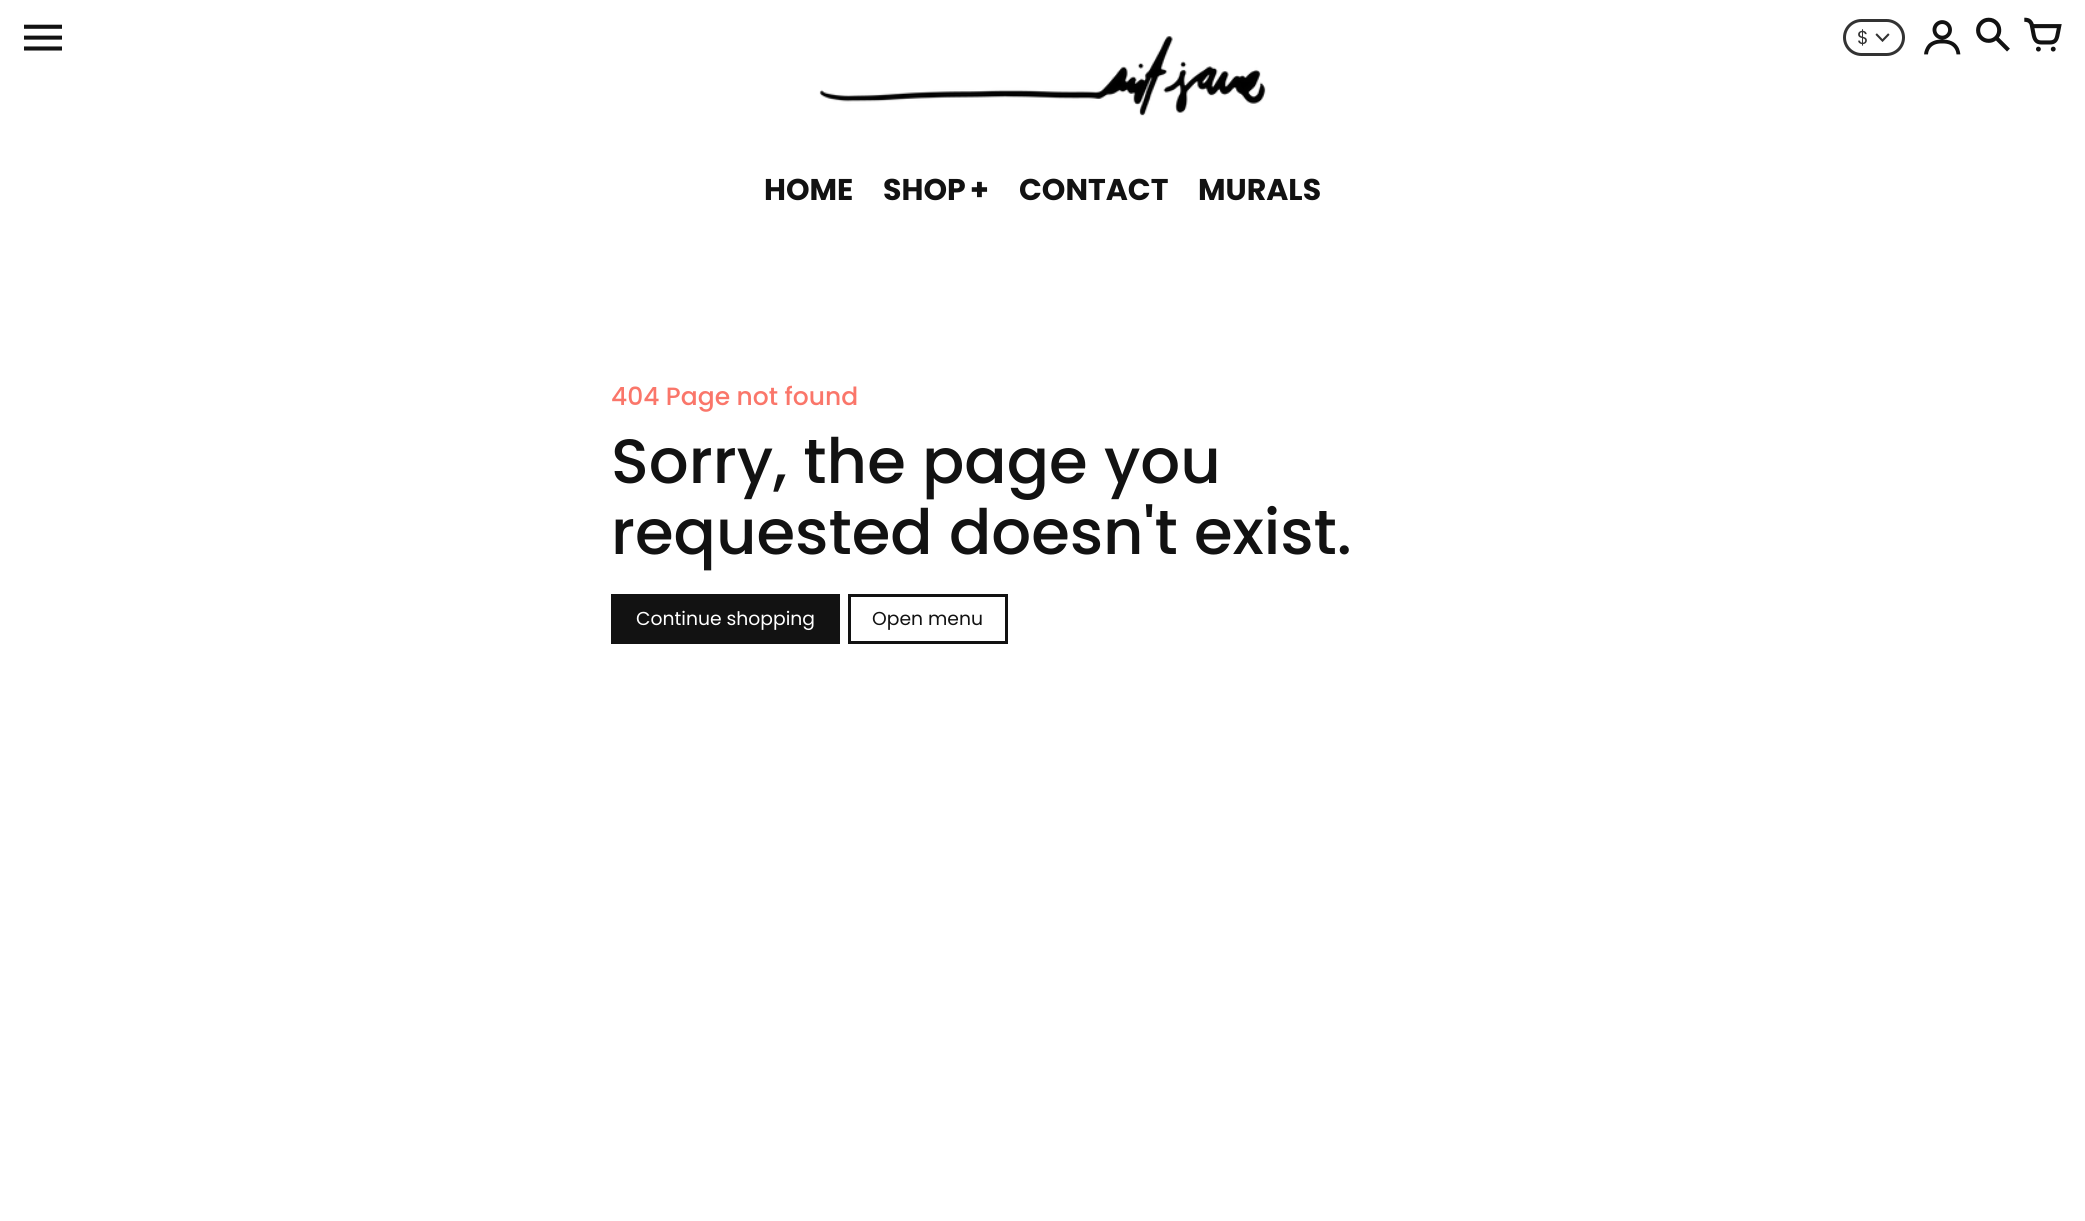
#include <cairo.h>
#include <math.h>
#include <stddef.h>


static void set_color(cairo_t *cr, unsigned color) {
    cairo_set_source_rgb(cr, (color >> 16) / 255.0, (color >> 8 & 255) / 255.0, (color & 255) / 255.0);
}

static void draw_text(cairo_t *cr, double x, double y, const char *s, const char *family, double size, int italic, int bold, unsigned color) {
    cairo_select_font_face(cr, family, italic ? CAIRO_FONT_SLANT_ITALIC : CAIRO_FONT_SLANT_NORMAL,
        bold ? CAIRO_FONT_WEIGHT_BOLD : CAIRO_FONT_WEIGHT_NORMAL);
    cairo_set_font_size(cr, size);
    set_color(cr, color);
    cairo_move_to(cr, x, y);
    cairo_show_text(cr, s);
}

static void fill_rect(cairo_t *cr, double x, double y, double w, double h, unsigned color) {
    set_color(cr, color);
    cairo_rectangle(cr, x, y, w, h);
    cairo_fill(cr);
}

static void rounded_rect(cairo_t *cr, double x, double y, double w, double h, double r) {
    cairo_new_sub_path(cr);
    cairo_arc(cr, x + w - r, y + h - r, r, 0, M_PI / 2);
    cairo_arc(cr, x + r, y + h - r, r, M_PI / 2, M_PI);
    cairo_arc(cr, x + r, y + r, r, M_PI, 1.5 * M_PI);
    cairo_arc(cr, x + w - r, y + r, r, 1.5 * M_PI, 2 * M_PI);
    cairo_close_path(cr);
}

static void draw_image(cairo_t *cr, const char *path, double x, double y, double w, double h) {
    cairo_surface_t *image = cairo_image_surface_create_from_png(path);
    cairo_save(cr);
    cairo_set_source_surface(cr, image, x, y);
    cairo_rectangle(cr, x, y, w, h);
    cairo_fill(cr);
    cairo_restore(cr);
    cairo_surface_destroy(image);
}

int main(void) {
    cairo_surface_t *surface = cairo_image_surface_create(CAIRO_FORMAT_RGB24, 2085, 1221);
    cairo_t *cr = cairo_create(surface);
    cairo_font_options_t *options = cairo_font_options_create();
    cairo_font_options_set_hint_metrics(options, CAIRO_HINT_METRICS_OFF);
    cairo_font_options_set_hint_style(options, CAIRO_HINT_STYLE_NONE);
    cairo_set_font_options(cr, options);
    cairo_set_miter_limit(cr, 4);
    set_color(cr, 0xFFFFFF);
    cairo_paint(cr);
    draw_text(cr, 24, 59, "1", "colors", 38, 0, 0, 0x121212);
    draw_image(cr, "assets/img1.png", 819, 36, 447, 80);
    rounded_rect(cr, 1844.5, 20.5, 59, 34, 17);
    set_color(cr, 0x333333);
    cairo_set_line_width(cr, 3);
    cairo_stroke(cr);
    draw_text(cr, 1857, 44, "$", "Poppins", 18.75, 0, 0, 0x333333);
    draw_image(cr, "assets/img2.png", 1875, 33, 15, 9);
    draw_image(cr, "assets/img3.png", 1924, 20, 37, 35);
    draw_text(cr, 1974, 56, "2", "colors", 38, 0, 0, 0x121212);
    draw_text(cr, 2024, 56, "3", "colors", 38, 0, 0, 0x121212);
    draw_text(cr, 764, 200, "HOME", "Poppins", 30, 0, 1, 0x121212);
    draw_text(cr, 883, 200, "SHOP", "Poppins", 30, 0, 1, 0x121212);
    draw_text(cr, 970, 200, "+", "Poppins", 30, 0, 1, 0x121212);
    draw_text(cr, 1019, 200, "CONTACT", "Poppins", 30, 0, 1, 0x121212);
    draw_text(cr, 1198, 200, "MURALS", "Poppins", 30, 0, 1, 0x121212);
    draw_text(cr, 611, 405, "404 Page not found", "Poppins Medium", 25, 0, 0, 0xFA766A);
    draw_text(cr, 611, 483, "Sorry, the page you", "Poppins Medium", 62.5, 0, 0, 0x121212);
    draw_text(cr, 611, 554, "requested doesn't exist.", "Poppins Medium", 62.5, 0, 0, 0x121212);
    fill_rect(cr, 611, 594, 229, 50, 0x121212);
    draw_text(cr, 636, 625, "Continue shopping", "Poppins", 18.75, 0, 0, 0xFFFFFF);
    cairo_rectangle(cr, 849.5, 595.5, 157, 47);
    set_color(cr, 0x121212);
    cairo_stroke(cr);
    draw_text(cr, 872, 625, "Open menu", "Poppins", 18.75, 0, 0, 0x121212);
    cairo_surface_write_to_png(surface, "output.png");
    cairo_font_options_destroy(options);
    cairo_destroy(cr);
    cairo_surface_destroy(surface);
    return 0;
}
